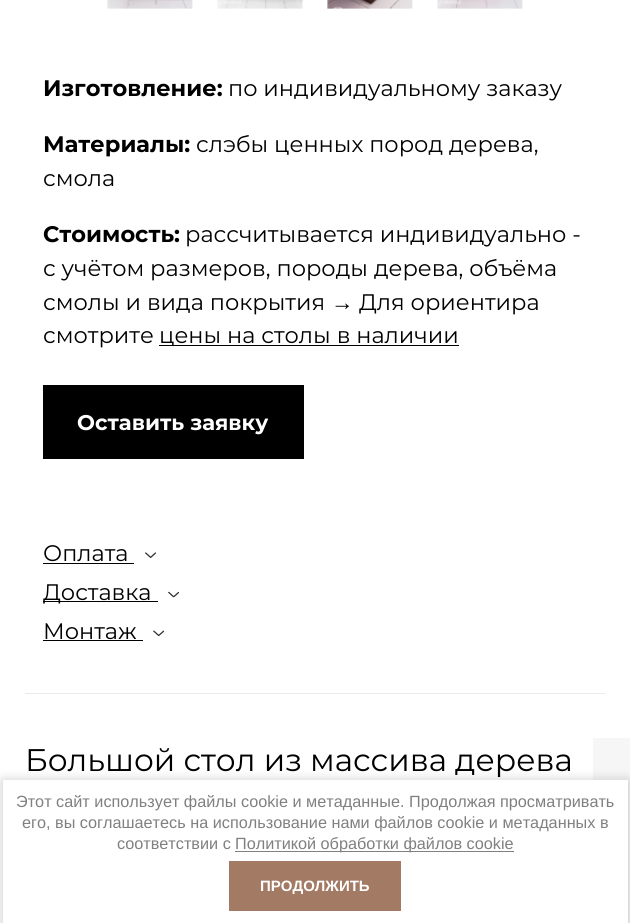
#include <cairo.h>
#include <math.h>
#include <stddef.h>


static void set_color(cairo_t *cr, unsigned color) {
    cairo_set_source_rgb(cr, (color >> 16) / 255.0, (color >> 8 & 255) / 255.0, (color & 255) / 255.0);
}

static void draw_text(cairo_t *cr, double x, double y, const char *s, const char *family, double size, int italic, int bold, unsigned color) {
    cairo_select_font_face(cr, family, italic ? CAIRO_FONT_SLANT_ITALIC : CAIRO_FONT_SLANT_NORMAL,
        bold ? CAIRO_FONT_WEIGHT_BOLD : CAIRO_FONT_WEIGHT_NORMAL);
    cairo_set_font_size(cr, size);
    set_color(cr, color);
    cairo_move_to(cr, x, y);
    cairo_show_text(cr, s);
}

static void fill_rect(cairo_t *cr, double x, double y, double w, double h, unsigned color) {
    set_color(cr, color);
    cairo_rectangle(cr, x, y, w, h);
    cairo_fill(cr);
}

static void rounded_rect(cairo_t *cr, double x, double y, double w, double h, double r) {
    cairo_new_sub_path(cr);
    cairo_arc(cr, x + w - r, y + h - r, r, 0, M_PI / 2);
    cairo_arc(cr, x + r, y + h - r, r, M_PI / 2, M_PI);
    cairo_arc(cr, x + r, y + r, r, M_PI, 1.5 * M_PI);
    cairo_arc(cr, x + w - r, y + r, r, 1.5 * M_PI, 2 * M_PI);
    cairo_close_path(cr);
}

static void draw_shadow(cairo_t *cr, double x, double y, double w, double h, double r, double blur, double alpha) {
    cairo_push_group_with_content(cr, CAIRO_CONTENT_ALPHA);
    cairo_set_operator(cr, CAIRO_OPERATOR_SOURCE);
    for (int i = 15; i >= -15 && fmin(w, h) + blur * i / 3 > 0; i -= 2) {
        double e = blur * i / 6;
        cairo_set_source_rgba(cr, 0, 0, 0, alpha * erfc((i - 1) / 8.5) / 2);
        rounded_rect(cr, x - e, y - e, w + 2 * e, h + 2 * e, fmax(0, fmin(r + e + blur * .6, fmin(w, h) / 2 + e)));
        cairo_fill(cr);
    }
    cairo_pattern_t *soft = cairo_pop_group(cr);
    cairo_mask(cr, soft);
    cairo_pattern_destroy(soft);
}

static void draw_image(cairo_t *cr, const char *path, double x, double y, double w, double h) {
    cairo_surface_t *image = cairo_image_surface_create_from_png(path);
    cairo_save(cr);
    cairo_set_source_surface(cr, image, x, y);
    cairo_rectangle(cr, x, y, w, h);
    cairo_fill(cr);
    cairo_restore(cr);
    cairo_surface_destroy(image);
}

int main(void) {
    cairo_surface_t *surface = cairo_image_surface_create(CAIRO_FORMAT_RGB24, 630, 923);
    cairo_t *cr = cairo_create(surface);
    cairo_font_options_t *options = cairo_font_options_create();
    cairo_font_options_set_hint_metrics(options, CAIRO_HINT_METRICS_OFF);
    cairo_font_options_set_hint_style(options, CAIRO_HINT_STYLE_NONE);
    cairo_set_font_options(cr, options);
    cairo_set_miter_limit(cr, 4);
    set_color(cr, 0xFFFFFF);
    cairo_paint(cr);
    fill_rect(cr, 25, 693, 580, 1, 0xEBEBEB);
    draw_image(cr, "assets/img1.png", 107, 0, 86, 9);
    draw_image(cr, "assets/img2.png", 217, 0, 87, 9);
    draw_image(cr, "assets/img3.png", 327, 0, 86, 9);
    draw_image(cr, "assets/img4.png", 437, 0, 86, 9);
    draw_text(cr, 43, 96, "Изготовление:", "Montserrat", 22.5, 0, 1, 0x000000);
    draw_text(cr, 228, 96, "по индивидуальному заказу", "Montserrat", 22.5, 0, 0, 0x000000);
    draw_text(cr, 43, 152, "Материалы:", "Montserrat", 22.5, 0, 1, 0x000000);
    draw_text(cr, 196, 152, "слэбы ценных пород дерева,", "Montserrat", 22.5, 0, 0, 0x000000);
    draw_text(cr, 43, 186, "смола", "Montserrat", 22.5, 0, 0, 0x000000);
    draw_text(cr, 43, 242, "Стоимость:", "Montserrat", 22.5, 0, 1, 0x000000);
    draw_text(cr, 185, 242, "рассчитывается индивидуально -", "Montserrat", 22.5, 0, 0, 0x000000);
    draw_text(cr, 43, 276, "с учётом размеров, породы дерева, объёма", "Montserrat", 22.5, 0, 0, 0x000000);
    draw_text(cr, 43, 310, "смолы и вида покрытия", "Montserrat", 22.5, 0, 0, 0x000000);
    draw_text(cr, 331, 310, "→", "Liberation Sans", 22.5, 0, 1, 0x000000);
    draw_text(cr, 359, 310, "Для ориентира", "Montserrat", 22.5, 0, 0, 0x000000);
    draw_text(cr, 43, 343, "смотрите", "Montserrat", 22.5, 0, 0, 0x000000);
    fill_rect(cr, 159, 345, 300, 1, 0x000000);
    draw_text(cr, 159, 343, "цены на столы в наличии", "Montserrat", 22.5, 0, 0, 0x000000);
    fill_rect(cr, 43, 385, 261, 74, 0x000000);
    draw_text(cr, 77, 430, "Оставить заявку", "Montserrat", 21.25, 0, 1, 0xFFFFFF);
    draw_text(cr, 43, 561, "Оплата", "Montserrat", 22.5, 0, 0, 0x000000);
    fill_rect(cr, 43, 563, 91, 1, 0x000000);
    draw_image(cr, "assets/img5.png", 145, 552, 11, 6);
    fill_rect(cr, 43, 601, 115, 1, 0x000000);
    draw_text(cr, 43, 600, "Доставка", "Montserrat", 22.5, 0, 0, 0x000000);
    draw_image(cr, "assets/img6.png", 168, 591, 11, 7);
    draw_text(cr, 43, 639, "Монтаж", "Montserrat", 22.5, 0, 0, 0x000000);
    fill_rect(cr, 43, 640, 100, 1, 0x000000);
    draw_image(cr, "assets/img7.png", 153, 630, 11, 6);
    draw_text(cr, 25, 771, "Большой стол из массива дерева", "Montserrat", 31.25, 0, 0, 0x000000);
    fill_rect(cr, 593, 738, 37, 185, 0xF6F6F6);
    set_color(cr, 0x000000);
    draw_shadow(cr, 3, 781, 625, 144, 0, 6, 0.23);
    fill_rect(cr, 3, 780, 625, 143, 0xFFFFFF);
    draw_text(cr, 16, 807, "Этот сайт использует файлы cookie и метаданные. Продолжая просматривать", "Liberation Sans", 16.25, 0, 0, 0x808080);
    draw_text(cr, 22, 828, "его, вы соглашаетесь на использование нами файлов cookie и метаданных в", "Liberation Sans", 16.25, 0, 0, 0x808080);
    draw_text(cr, 117, 849, "соответствии с", "Liberation Sans", 16.25, 0, 0, 0x808080);
    fill_rect(cr, 235, 851, 279, 1, 0x808080);
    draw_text(cr, 235, 849, "Политикой обработки файлов cookie", "Liberation Sans", 16.25, 0, 0, 0x808080);
    fill_rect(cr, 229, 861, 172, 50, 0xA37A64);
    draw_text(cr, 260, 891, "ПРОДОЛЖИТЬ", "Liberation Sans", 15, 0, 1, 0xFFFFFF);
    cairo_surface_write_to_png(surface, "output.png");
    cairo_font_options_destroy(options);
    cairo_destroy(cr);
    cairo_surface_destroy(surface);
    return 0;
}
